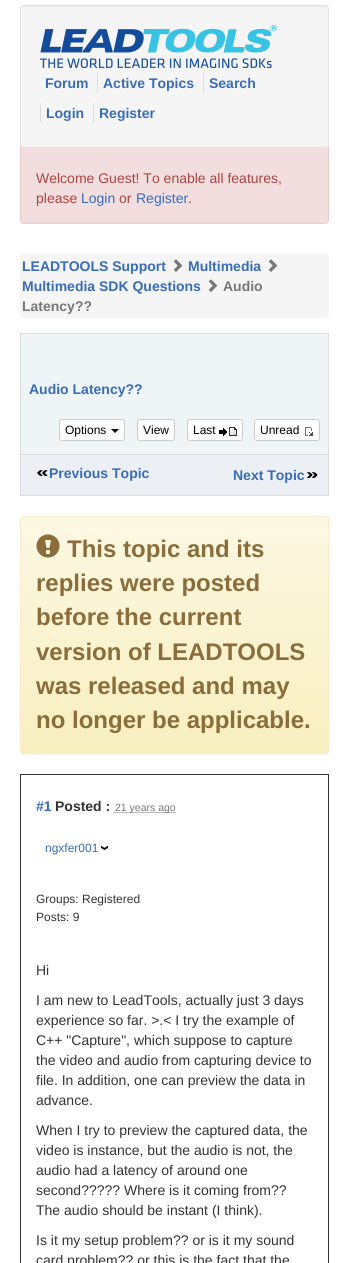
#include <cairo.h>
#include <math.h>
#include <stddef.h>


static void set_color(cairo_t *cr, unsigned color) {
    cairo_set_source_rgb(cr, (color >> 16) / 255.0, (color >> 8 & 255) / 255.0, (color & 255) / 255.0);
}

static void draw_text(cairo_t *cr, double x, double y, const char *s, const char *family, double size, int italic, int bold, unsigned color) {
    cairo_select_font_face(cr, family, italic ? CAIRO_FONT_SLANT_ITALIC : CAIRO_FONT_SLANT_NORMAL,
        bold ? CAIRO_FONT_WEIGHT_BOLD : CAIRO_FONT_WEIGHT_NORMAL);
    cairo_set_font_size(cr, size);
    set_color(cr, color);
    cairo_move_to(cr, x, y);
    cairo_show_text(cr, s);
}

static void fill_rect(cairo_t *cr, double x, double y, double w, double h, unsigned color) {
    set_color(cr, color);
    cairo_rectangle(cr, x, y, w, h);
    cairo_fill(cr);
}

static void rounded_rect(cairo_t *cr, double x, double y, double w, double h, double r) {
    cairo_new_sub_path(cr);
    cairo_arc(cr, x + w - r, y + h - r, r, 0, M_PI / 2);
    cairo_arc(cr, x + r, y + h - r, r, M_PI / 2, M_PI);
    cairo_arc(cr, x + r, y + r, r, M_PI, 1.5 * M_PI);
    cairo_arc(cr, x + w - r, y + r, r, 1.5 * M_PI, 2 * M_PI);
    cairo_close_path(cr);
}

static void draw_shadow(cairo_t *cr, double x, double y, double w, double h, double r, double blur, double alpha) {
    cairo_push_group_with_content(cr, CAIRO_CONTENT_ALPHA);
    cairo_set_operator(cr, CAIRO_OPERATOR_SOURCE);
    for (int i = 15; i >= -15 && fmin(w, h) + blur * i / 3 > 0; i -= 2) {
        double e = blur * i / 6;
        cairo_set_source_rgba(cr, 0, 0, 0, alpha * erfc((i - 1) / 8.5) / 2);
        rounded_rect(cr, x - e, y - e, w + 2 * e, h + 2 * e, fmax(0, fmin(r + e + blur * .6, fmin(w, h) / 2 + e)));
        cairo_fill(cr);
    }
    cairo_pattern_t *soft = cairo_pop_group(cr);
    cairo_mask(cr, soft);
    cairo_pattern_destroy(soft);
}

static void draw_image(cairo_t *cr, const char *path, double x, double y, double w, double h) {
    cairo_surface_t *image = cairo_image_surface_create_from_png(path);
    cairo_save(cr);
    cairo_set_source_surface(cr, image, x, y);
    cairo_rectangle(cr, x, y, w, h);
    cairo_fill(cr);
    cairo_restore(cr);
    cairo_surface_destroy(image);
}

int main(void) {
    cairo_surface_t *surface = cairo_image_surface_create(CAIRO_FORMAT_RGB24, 349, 1263);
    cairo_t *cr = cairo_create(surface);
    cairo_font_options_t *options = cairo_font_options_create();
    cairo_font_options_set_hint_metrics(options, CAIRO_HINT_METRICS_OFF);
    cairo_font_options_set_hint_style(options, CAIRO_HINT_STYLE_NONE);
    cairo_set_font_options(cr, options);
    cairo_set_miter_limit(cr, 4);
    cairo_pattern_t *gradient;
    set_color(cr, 0xFFFFFF);
    cairo_paint(cr);
    set_color(cr, 0xF2DEDE);
    rounded_rect(cr, 20.5, 5.5, 308, 218, 3.5);
    cairo_fill_preserve(cr);
    set_color(cr, 0xEBCCD1);
    cairo_set_line_width(cr, 1);
    cairo_stroke(cr);
    set_color(cr, 0xF5F5F5);
    rounded_rect(cr, 20, 5, 309, 143, 4);
    cairo_fill(cr);
    set_color(cr, 0xE9E9E9);
    cairo_new_path(cr);
    cairo_move_to(cr, 24, 7);
    cairo_line_to(cr, 325, 7);
    cairo_curve_to(cr, 327, 7, 328, 8, 328, 10);
    cairo_line_to(cr, 327, 7);
    cairo_line_to(cr, 326, 6);
    cairo_line_to(cr, 24, 6);
    cairo_curve_to(cr, 22, 6, 21, 8, 21, 10);
    cairo_curve_to(cr, 21, 8, 22, 7, 24, 7);
    cairo_close_path(cr);
    cairo_fill(cr);
    rounded_rect(cr, 20.5, 5.5, 308, 142, 3.5);
    set_color(cr, 0xE3E3E3);
    cairo_stroke(cr);
    draw_image(cr, "assets/img1.png", 40, 25, 237, 43);
    draw_text(cr, 45, 88, "Forum", "Liberation Sans", 14, 0, 1, 0x386CB8);
    draw_text(cr, 103, 88, "Active Topics", "Liberation Sans", 14, 0, 1, 0x386CB8);
    fill_rect(cr, 97, 73, 1, 20, 0xDDDDDD);
    draw_text(cr, 209, 88, "Search", "Liberation Sans", 14, 0, 1, 0x386CB8);
    fill_rect(cr, 203, 73, 1, 20, 0xDDDDDD);
    draw_text(cr, 46, 118, "Login", "Liberation Sans", 14, 0, 1, 0x386CB8);
    fill_rect(cr, 40, 103, 1, 20, 0xDDDDDD);
    draw_text(cr, 99, 118, "Register", "Liberation Sans", 14, 0, 1, 0x386CB8);
    fill_rect(cr, 93, 103, 1, 20, 0xDDDDDD);
    draw_text(cr, 36, 183, "Welcome Guest! To enable all features,", "Liberation Sans", 14, 0, 0, 0xA94442);
    draw_text(cr, 36, 203, "please", "Liberation Sans", 14, 0, 0, 0xA94442);
    draw_text(cr, 81, 203, "Login", "Liberation Sans", 14, 0, 0, 0x386CB8);
    draw_text(cr, 119, 203, "or", "Liberation Sans", 14, 0, 0, 0xA94442);
    draw_text(cr, 136, 203, "Register", "Liberation Sans", 14, 0, 0, 0x386CB8);
    draw_text(cr, 188, 203, ".", "Liberation Sans", 14, 0, 0, 0xA94442);
    set_color(cr, 0xF5F5F5);
    rounded_rect(cr, 20, 254, 309, 64, 4);
    cairo_fill(cr);
    draw_text(cr, 22, 271, "LEADTOOLS Support", "Liberation Sans", 14, 0, 1, 0x386CB8);
    draw_image(cr, "assets/img2.png", 173, 259, 10, 13);
    draw_text(cr, 188, 271, "Multimedia", "Liberation Sans", 14, 0, 1, 0x386CB8);
    draw_image(cr, "assets/img2.png", 268, 259, 10, 13);
    draw_text(cr, 22, 291, "Multimedia SDK Questions", "Liberation Sans", 14, 0, 1, 0x386CB8);
    draw_image(cr, "assets/img2.png", 208, 279, 10, 13);
    draw_text(cr, 223, 291, "Audio", "Liberation Sans", 14, 0, 1, 0x777777);
    draw_text(cr, 22, 311, "Latency?\077", "Liberation Sans", 14, 0, 1, 0x777777);
    fill_rect(cr, 20, 333, 309, 1, 0xDDDDDD);
    fill_rect(cr, 328, 333, 1, 163, 0xDDDDDD);
    fill_rect(cr, 20, 495, 309, 1, 0xDDDDDD);
    fill_rect(cr, 20, 333, 1, 163, 0xDDDDDD);
    fill_rect(cr, 21, 334, 307, 120, 0xEFF4F7);
    draw_text(cr, 29, 394, "Audio Latency?\077", "Liberation Sans", 14, 0, 1, 0x386CB8);
    set_color(cr, 0xFFFFFF);
    rounded_rect(cr, 59.5, 419.5, 65, 21, 2.5);
    cairo_fill_preserve(cr);
    set_color(cr, 0xCCCCCC);
    cairo_stroke(cr);
    draw_text(cr, 65, 434, "Options", "Liberation Sans", 12, 0, 0, 0x000000);
    cairo_new_path(cr);
    cairo_move_to(cr, 111, 429);
    cairo_line_to(cr, 119, 429);
    cairo_line_to(cr, 115, 433);
    cairo_close_path(cr);
    cairo_fill(cr);
    set_color(cr, 0xFFFFFF);
    rounded_rect(cr, 137.5, 419.5, 37, 21, 2.5);
    cairo_fill_preserve(cr);
    set_color(cr, 0xCCCCCC);
    cairo_stroke(cr);
    draw_text(cr, 143, 434, "View", "Liberation Sans", 12, 0, 0, 0x000000);
    set_color(cr, 0xFFFFFF);
    rounded_rect(cr, 187.5, 419.5, 55, 21, 2.5);
    cairo_fill_preserve(cr);
    set_color(cr, 0xCCCCCC);
    cairo_stroke(cr);
    draw_text(cr, 193, 434, "Last", "Liberation Sans", 12, 0, 0, 0x000000);
    draw_image(cr, "assets/img3.png", 219, 427, 18, 9);
    set_color(cr, 0xFFFFFF);
    rounded_rect(cr, 254.5, 419.5, 65, 21, 2.5);
    cairo_fill_preserve(cr);
    set_color(cr, 0xCCCCCC);
    cairo_stroke(cr);
    draw_text(cr, 260, 434, "Unread", "Liberation Sans", 12, 0, 0, 0x000000);
    draw_image(cr, "assets/img4.png", 305, 427, 8, 9);
    fill_rect(cr, 21, 455, 307, 40, 0xECEFF4);
    fill_rect(cr, 20, 454, 309, 1, 0xDDDDDD);
    draw_image(cr, "assets/img5.png", 37, 470, 11, 6);
    draw_text(cr, 49, 478, "Previous Topic", "Liberation Sans", 14, 0, 1, 0x386CB8);
    draw_image(cr, "assets/img6.png", 307, 472, 11, 6);
    draw_text(cr, 233, 480, "Next Topic", "Liberation Sans", 14, 0, 1, 0x386CB8);
    set_color(cr, 0x000000);
    draw_shadow(cr, 20, 517, 309, 238, 4, 1, 0.05);
    cairo_save(cr);
    rounded_rect(cr, 20, 516, 309, 238, 4);
    cairo_clip(cr);
    gradient = cairo_pattern_create_linear(174, 517, 175, 753);
    cairo_pattern_add_color_stop_rgba(gradient, 0, 0.988, 0.973, 0.89, 1);
    cairo_pattern_add_color_stop_rgba(gradient, 1, 0.973, 0.937, 0.753, 1);
    cairo_set_source(cr, gradient);
    cairo_pattern_destroy(gradient);
    cairo_rectangle(cr, 20, 517, 309, 236);
    cairo_fill(cr);
    cairo_restore(cr);
    set_color(cr, 0xFDFAEA);
    cairo_new_path(cr);
    cairo_move_to(cr, 24, 518);
    cairo_line_to(cr, 325, 518);
    cairo_curve_to(cr, 327, 518, 328, 519, 328, 521);
    cairo_line_to(cr, 327, 518);
    cairo_line_to(cr, 326, 517);
    cairo_line_to(cr, 24, 517);
    cairo_curve_to(cr, 22, 517, 21, 519, 21, 521);
    cairo_curve_to(cr, 21, 519, 22, 518, 24, 518);
    cairo_close_path(cr);
    cairo_fill(cr);
    rounded_rect(cr, 20.5, 516.5, 308, 237, 3.5);
    set_color(cr, 0xFAEBCC);
    cairo_stroke(cr);
    draw_image(cr, "assets/img7.png", 36, 534, 24, 24);
    draw_text(cr, 67, 557, "This topic and its", "Liberation Sans", 24, 0, 1, 0x8A6D3B);
    draw_text(cr, 36, 591, "replies were posted", "Liberation Sans", 24, 0, 1, 0x8A6D3B);
    draw_text(cr, 36, 625, "before the current", "Liberation Sans", 24, 0, 1, 0x8A6D3B);
    draw_text(cr, 36, 660, "version of LEADTOOLS", "Liberation Sans", 24, 0, 1, 0x8A6D3B);
    draw_text(cr, 36, 694, "was released and may", "Liberation Sans", 24, 0, 1, 0x8A6D3B);
    draw_text(cr, 36, 728, "no longer be applicable.", "Liberation Sans", 24, 0, 1, 0x8A6D3B);
    cairo_rectangle(cr, 20.5, 774.5, 308, 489);
    set_color(cr, 0x333333);
    cairo_stroke(cr);
    draw_text(cr, 36, 811, "#1", "Liberation Sans", 14, 0, 1, 0x386CB8);
    draw_text(cr, 55, 811, "Posted :", "Liberation Sans", 14, 0, 1, 0x333333);
    cairo_new_path(cr);
    cairo_move_to(cr, 114.5, 812.5);
    cairo_line_to(cr, 175.5, 812.5);
    set_color(cr, 0x777777);
    cairo_set_dash(cr, (double[]){1, 1}, 2, 0);
    cairo_stroke(cr);
    draw_text(cr, 115, 811, "21 years ago", "Liberation Sans", 10.5, 0, 0, 0x777777);
    draw_text(cr, 45, 852, "ngxfer001", "Liberation Sans", 12, 0, 0, 0x386CB8);
    draw_image(cr, "assets/img8.png", 101, 846, 8, 4);
    draw_text(cr, 36, 903, "Groups: Registered", "Liberation Sans", 12, 0, 0, 0x333333);
    draw_text(cr, 36, 921, "Posts: 9", "Liberation Sans", 12, 0, 0, 0x333333);
    draw_text(cr, 36, 975, "Hi", "Liberation Sans", 14, 0, 0, 0x333333);
    draw_text(cr, 36, 1005, "I am new to LeadTools, actually just 3 days", "Liberation Sans", 14, 0, 0, 0x333333);
    draw_text(cr, 36, 1025, "experience so far. >.< I try the example of", "Liberation Sans", 14, 0, 0, 0x333333);
    draw_text(cr, 36, 1045, "C++ \"Capture\", which suppose to capture", "Liberation Sans", 14, 0, 0, 0x333333);
    draw_text(cr, 36, 1065, "the video and audio from capturing device to", "Liberation Sans", 14, 0, 0, 0x333333);
    draw_text(cr, 36, 1085, "file. In addition, one can preview the data in", "Liberation Sans", 14, 0, 0, 0x333333);
    draw_text(cr, 36, 1105, "advance.", "Liberation Sans", 14, 0, 0, 0x333333);
    draw_text(cr, 36, 1135, "When I try to preview the captured data, the", "Liberation Sans", 14, 0, 0, 0x333333);
    draw_text(cr, 36, 1155, "video is instance, but the audio is not, the", "Liberation Sans", 14, 0, 0, 0x333333);
    draw_text(cr, 36, 1175, "audio had a latency of around one", "Liberation Sans", 14, 0, 0, 0x333333);
    draw_text(cr, 36, 1195, "second?\077?\077? Where is it coming from?\077", "Liberation Sans", 14, 0, 0, 0x333333);
    draw_text(cr, 36, 1215, "The audio should be instant (I think).", "Liberation Sans", 14, 0, 0, 0x333333);
    draw_text(cr, 36, 1245, "Is it my setup problem?\077 or is it my sound", "Liberation Sans", 14, 0, 0, 0x333333);
    draw_text(cr, 36, 1265, "card problem?\077 or this is the fact that the", "Liberation Sans", 14, 0, 0, 0x333333);
    cairo_surface_write_to_png(surface, "output.png");
    cairo_font_options_destroy(options);
    cairo_destroy(cr);
    cairo_surface_destroy(surface);
    return 0;
}
